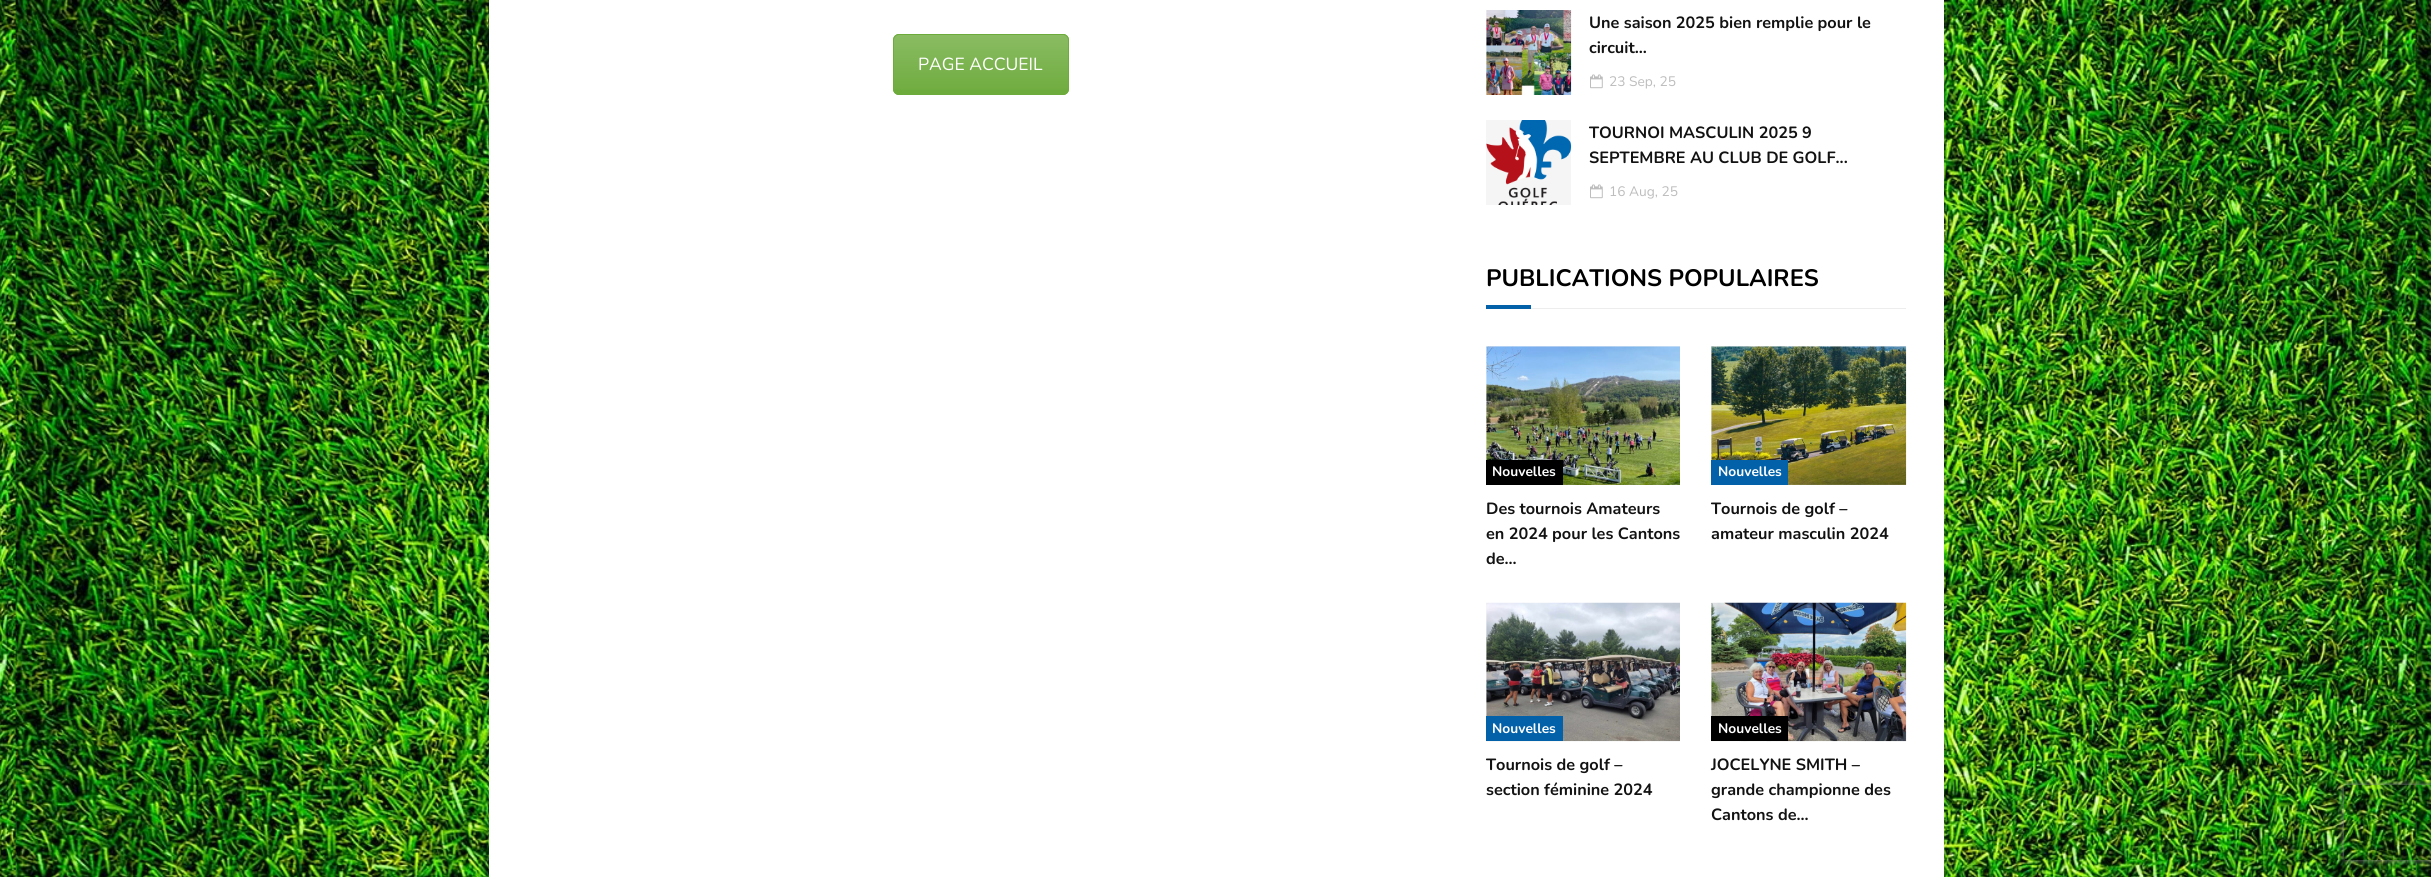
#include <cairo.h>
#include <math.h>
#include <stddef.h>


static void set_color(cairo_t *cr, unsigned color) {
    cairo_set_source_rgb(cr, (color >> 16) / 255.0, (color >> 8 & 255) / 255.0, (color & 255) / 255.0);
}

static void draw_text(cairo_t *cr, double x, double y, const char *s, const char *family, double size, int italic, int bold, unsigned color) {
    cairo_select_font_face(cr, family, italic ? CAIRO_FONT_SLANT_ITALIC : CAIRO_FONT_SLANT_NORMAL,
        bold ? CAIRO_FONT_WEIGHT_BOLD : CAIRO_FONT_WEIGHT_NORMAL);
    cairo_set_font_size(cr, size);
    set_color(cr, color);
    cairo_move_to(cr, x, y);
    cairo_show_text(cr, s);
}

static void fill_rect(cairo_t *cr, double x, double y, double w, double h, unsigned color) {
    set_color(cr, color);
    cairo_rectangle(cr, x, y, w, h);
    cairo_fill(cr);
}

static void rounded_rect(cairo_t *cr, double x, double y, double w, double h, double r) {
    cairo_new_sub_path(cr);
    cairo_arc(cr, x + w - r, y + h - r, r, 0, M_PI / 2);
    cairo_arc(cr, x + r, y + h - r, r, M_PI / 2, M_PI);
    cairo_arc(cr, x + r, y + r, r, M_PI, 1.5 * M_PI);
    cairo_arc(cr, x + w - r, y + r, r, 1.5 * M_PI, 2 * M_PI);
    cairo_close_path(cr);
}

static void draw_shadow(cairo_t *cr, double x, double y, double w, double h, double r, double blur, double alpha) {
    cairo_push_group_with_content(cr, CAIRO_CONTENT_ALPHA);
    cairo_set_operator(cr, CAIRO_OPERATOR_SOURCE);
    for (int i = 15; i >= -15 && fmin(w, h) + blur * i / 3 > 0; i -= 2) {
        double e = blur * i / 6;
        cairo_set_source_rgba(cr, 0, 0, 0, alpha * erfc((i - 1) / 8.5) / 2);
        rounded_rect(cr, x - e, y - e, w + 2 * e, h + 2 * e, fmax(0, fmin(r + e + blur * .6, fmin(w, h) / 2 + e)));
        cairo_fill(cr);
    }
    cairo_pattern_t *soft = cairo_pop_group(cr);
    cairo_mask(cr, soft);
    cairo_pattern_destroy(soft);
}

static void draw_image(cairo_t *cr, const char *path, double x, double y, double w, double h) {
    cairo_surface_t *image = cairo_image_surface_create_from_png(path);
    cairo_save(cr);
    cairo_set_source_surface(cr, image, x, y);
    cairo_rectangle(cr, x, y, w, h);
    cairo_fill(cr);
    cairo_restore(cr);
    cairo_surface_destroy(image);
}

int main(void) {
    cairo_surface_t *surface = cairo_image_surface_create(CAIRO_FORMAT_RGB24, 2431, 877);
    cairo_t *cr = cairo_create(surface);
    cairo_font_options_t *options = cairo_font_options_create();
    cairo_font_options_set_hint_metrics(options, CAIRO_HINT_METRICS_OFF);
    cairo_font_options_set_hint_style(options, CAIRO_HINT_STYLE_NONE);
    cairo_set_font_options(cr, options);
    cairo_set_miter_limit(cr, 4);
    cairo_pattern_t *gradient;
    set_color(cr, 0xFFFFFF);
    cairo_paint(cr);
    draw_image(cr, "assets/img1.png", 0, 0, 2431, 877);
    fill_rect(cr, 489, 0, 1455, 877, 0xFFFFFF);
    set_color(cr, 0x6DAB3C);
    rounded_rect(cr, 893, 34, 176, 61, 6);
    cairo_fill(cr);
    cairo_save(cr);
    rounded_rect(cr, 893, 34, 176, 61, 6);
    cairo_clip(cr);
    gradient = cairo_pattern_create_linear(981, 35, 981, 94);
    cairo_pattern_add_color_stop_rgba(gradient, 0, 1, 1, 1, 0.2);
    cairo_pattern_add_color_stop_rgba(gradient, 1, 1, 1, 1, 0.01);
    cairo_set_source(cr, gradient);
    cairo_pattern_destroy(gradient);
    cairo_rectangle(cr, 893, 35, 176, 55);
    cairo_fill(cr);
    cairo_restore(cr);
    rounded_rect(cr, 893.5, 34.5, 175, 60, 5.5);
    cairo_set_line_width(cr, 1);
    cairo_stroke(cr);
    draw_text(cr, 918, 70, "PAGE ACCUEIL", "Nunito", 17.5, 0, 0, 0xFFFFFF);
    fill_rect(cr, 1486, 10, 1, 85, 0xF5F5F5);
    draw_image(cr, "assets/img2.png", 1486, 10, 86, 85);
    draw_text(cr, 1589, 28, "Une saison 2025 bien remplie pour le", "Nunito", 16.25, 0, 1, 0x121212);
    draw_text(cr, 1589, 53, "circuit...", "Nunito", 16.25, 0, 1, 0x121212);
    draw_image(cr, "assets/img3.png", 1590, 74, 13, 15);
    draw_text(cr, 1609, 86, "23 Sep, 25", "Nunito", 13.75, 0, 0, 0xBDBDBD);
    fill_rect(cr, 1486, 120, 85, 85, 0xF5F5F5);
    draw_image(cr, "assets/img4.png", 1486, 120, 86, 85);
    draw_text(cr, 1589, 138, "TOURNOI MASCULIN 2025 9", "Nunito", 16.25, 0, 1, 0x121212);
    draw_text(cr, 1589, 163, "SEPTEMBRE AU CLUB DE GOLF...", "Nunito", 16.25, 0, 1, 0x121212);
    draw_image(cr, "assets/img3.png", 1590, 184, 13, 15);
    draw_text(cr, 1609, 196, "16 Aug, 25", "Nunito", 13.75, 0, 0, 0xBDBDBD);
    fill_rect(cr, 1531, 308, 375, 1, 0xEDEDED);
    draw_text(cr, 1486, 286, "PUBLICATIONS POPULAIRES", "Nunito", 23.75, 0, 1, 0x000000);
    fill_rect(cr, 1486, 305, 45, 4, 0x0261A9);
    fill_rect(cr, 1486, 346, 194, 114, 0xF5F5F5);
    draw_image(cr, "assets/img5.png", 1486, 346, 194, 139);
    fill_rect(cr, 1486, 460, 77, 25, 0x000000);
    draw_text(cr, 1492, 476, "Nouvelles", "Nunito", 13.75, 0, 1, 0xFFFFFF);
    draw_text(cr, 1486, 514, "Des tournois Amateurs", "Nunito", 16.25, 0, 1, 0x121212);
    draw_text(cr, 1486, 539, "en 2024 pour les Cantons", "Nunito", 16.25, 0, 1, 0x121212);
    draw_text(cr, 1486, 564, "de...", "Nunito", 16.25, 0, 1, 0x121212);
    fill_rect(cr, 1711, 346, 195, 114, 0xF5F5F5);
    draw_image(cr, "assets/img6.png", 1711, 346, 196, 139);
    fill_rect(cr, 1711, 460, 77, 25, 0x0261A9);
    draw_text(cr, 1718, 476, "Nouvelles", "Nunito", 13.75, 0, 1, 0xFFFFFF);
    draw_text(cr, 1711, 514, "Tournois de golf –", "Nunito", 16.25, 0, 1, 0x121212);
    draw_text(cr, 1711, 539, "amateur masculin 2024", "Nunito", 16.25, 0, 1, 0x121212);
    fill_rect(cr, 1486, 603, 1, 113, 0xF5F5F5);
    draw_image(cr, "assets/img7.png", 1486, 602, 194, 140);
    fill_rect(cr, 1486, 716, 77, 25, 0x0261A9);
    draw_text(cr, 1492, 733, "Nouvelles", "Nunito", 13.75, 0, 1, 0xFFFFFF);
    draw_text(cr, 1486, 770, "Tournois de golf –", "Nunito", 16.25, 0, 1, 0x121212);
    draw_text(cr, 1486, 795, "section féminine 2024", "Nunito", 16.25, 0, 1, 0x121212);
    fill_rect(cr, 1711, 603, 1, 113, 0xF5F5F5);
    draw_image(cr, "assets/img8.png", 1711, 602, 196, 140);
    fill_rect(cr, 1711, 716, 77, 25, 0x000000);
    draw_text(cr, 1718, 733, "Nouvelles", "Nunito", 13.75, 0, 1, 0xFFFFFF);
    draw_text(cr, 1711, 770, "JOCELYNE SMITH –", "Nunito", 16.25, 0, 1, 0x121212);
    draw_text(cr, 1711, 795, "grande championne des", "Nunito", 16.25, 0, 1, 0x121212);
    draw_text(cr, 1711, 820, "Cantons de...", "Nunito", 16.25, 0, 1, 0x121212);
    cairo_save(cr);
    cairo_set_fill_rule(cr, CAIRO_FILL_RULE_EVEN_ODD);
    cairo_new_path(cr);
    cairo_move_to(cr, 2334, 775);
    cairo_line_to(cr, 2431, 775);
    cairo_line_to(cr, 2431, 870);
    cairo_line_to(cr, 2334, 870);
    cairo_close_path(cr);
    cairo_move_to(cr, 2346.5, 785);
    cairo_line_to(cr, 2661.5, 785);
    cairo_curve_to(cr, 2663, 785, 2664, 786, 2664, 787.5);
    cairo_line_to(cr, 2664, 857.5);
    cairo_curve_to(cr, 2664, 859, 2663, 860, 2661.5, 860);
    cairo_line_to(cr, 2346.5, 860);
    cairo_curve_to(cr, 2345, 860, 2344, 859, 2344, 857.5);
    cairo_line_to(cr, 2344, 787.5);
    cairo_curve_to(cr, 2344, 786, 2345, 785, 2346.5, 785);
    cairo_close_path(cr);
    cairo_clip(cr);
    set_color(cr, 0x808080);
    draw_shadow(cr, 2344, 785, 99, 75, 2.5, 3, 1);
    cairo_restore(cr);
    cairo_surface_write_to_png(surface, "output.png");
    cairo_font_options_destroy(options);
    cairo_destroy(cr);
    cairo_surface_destroy(surface);
    return 0;
}
